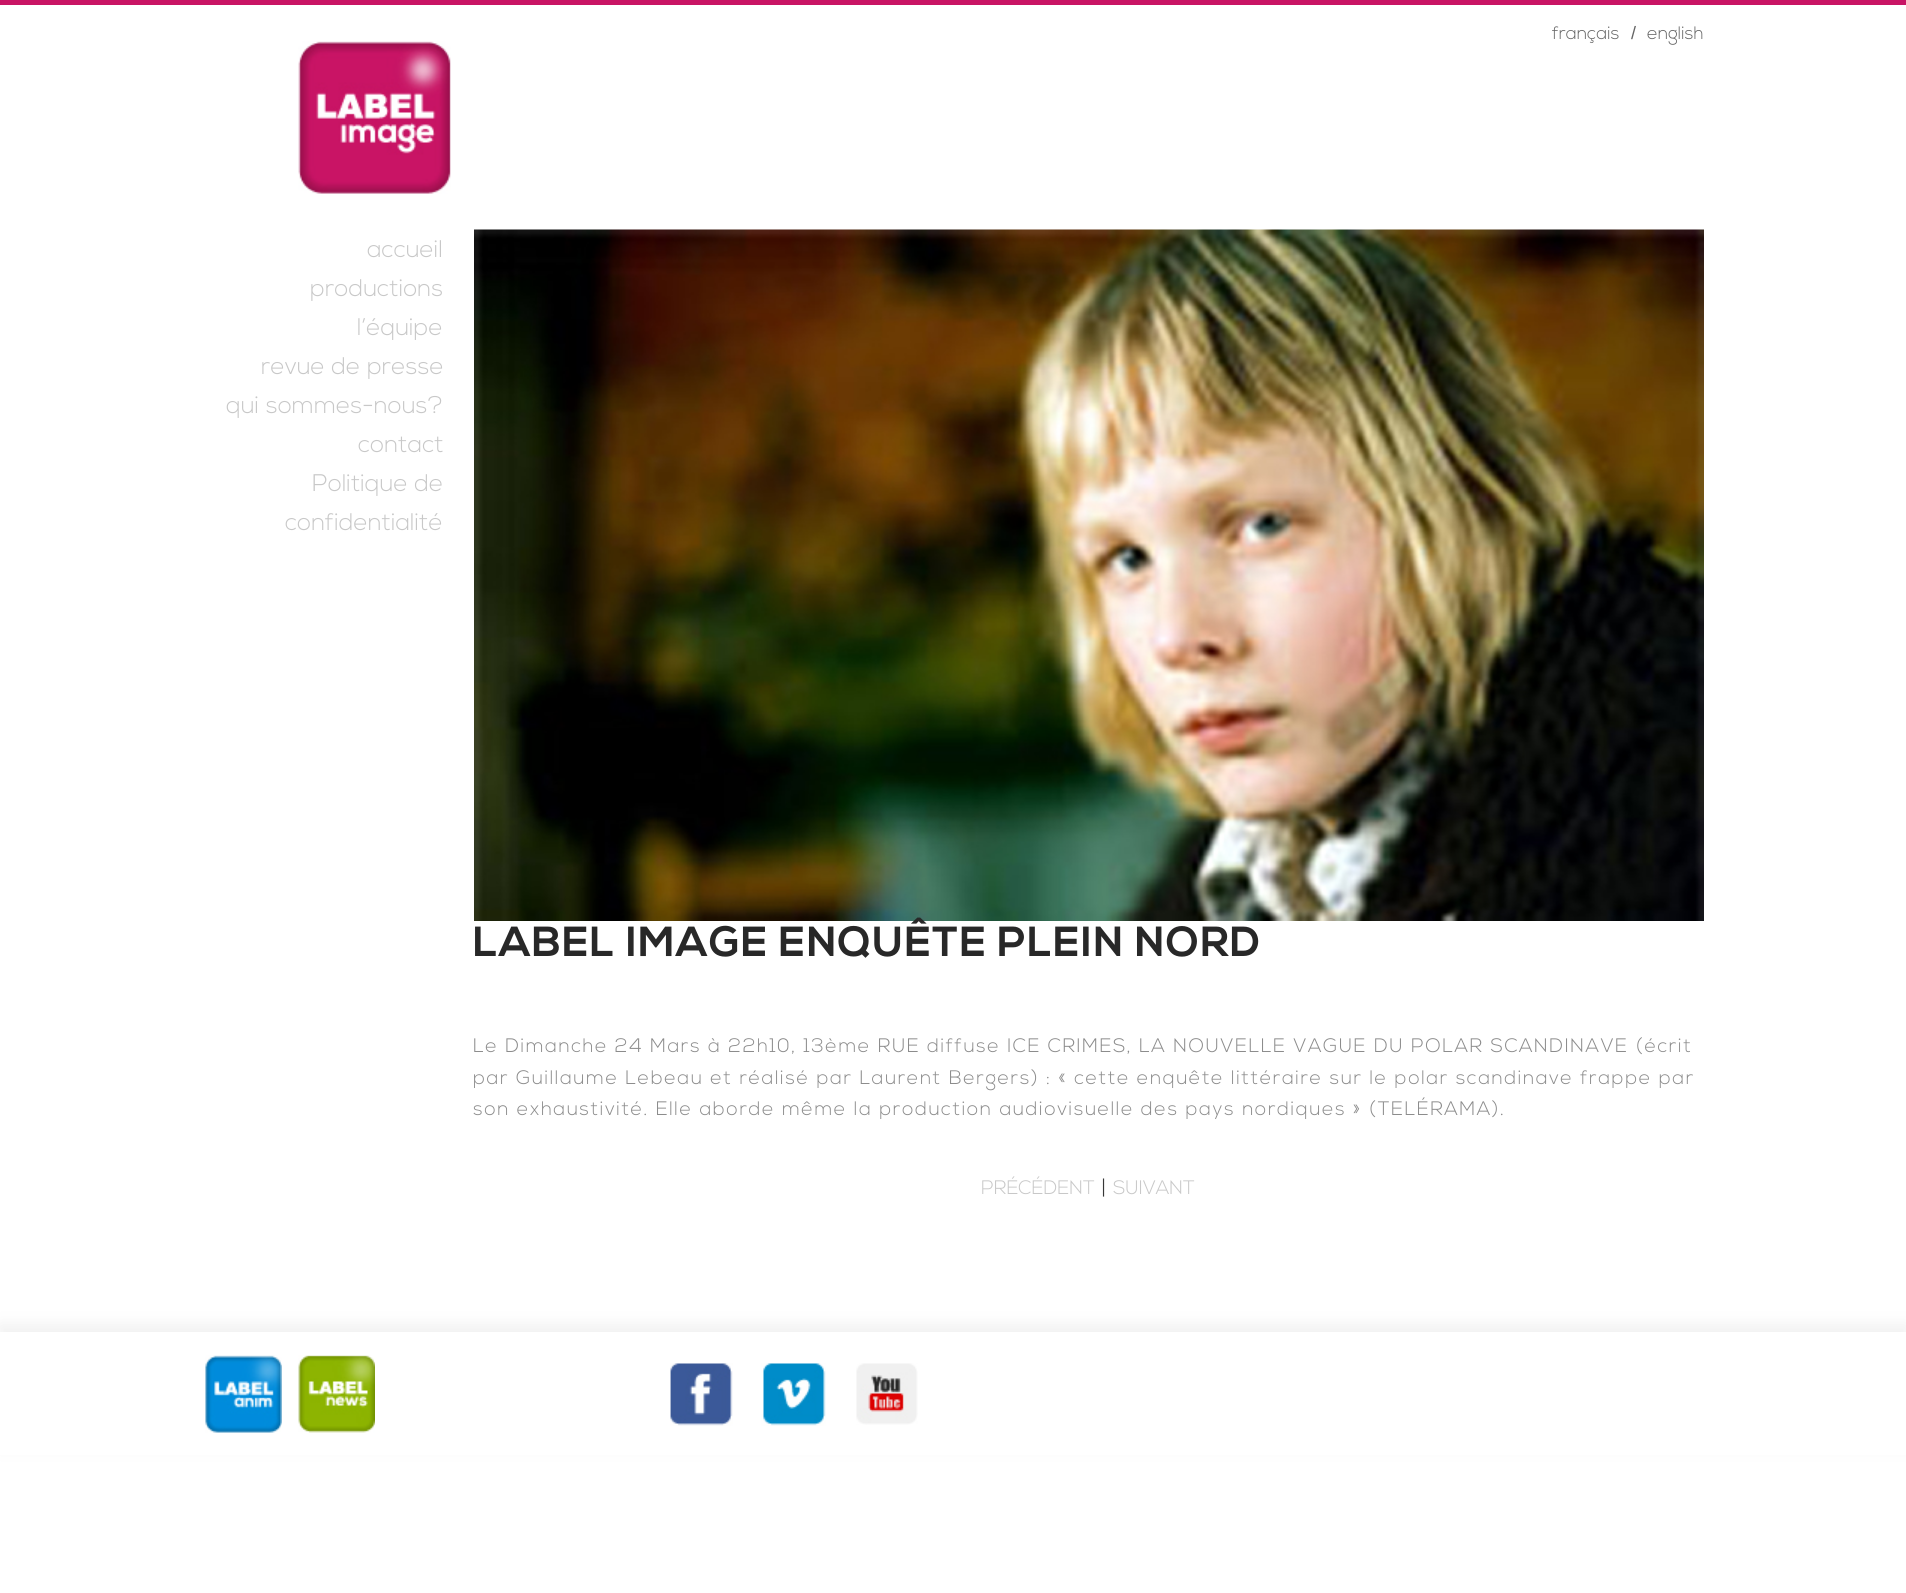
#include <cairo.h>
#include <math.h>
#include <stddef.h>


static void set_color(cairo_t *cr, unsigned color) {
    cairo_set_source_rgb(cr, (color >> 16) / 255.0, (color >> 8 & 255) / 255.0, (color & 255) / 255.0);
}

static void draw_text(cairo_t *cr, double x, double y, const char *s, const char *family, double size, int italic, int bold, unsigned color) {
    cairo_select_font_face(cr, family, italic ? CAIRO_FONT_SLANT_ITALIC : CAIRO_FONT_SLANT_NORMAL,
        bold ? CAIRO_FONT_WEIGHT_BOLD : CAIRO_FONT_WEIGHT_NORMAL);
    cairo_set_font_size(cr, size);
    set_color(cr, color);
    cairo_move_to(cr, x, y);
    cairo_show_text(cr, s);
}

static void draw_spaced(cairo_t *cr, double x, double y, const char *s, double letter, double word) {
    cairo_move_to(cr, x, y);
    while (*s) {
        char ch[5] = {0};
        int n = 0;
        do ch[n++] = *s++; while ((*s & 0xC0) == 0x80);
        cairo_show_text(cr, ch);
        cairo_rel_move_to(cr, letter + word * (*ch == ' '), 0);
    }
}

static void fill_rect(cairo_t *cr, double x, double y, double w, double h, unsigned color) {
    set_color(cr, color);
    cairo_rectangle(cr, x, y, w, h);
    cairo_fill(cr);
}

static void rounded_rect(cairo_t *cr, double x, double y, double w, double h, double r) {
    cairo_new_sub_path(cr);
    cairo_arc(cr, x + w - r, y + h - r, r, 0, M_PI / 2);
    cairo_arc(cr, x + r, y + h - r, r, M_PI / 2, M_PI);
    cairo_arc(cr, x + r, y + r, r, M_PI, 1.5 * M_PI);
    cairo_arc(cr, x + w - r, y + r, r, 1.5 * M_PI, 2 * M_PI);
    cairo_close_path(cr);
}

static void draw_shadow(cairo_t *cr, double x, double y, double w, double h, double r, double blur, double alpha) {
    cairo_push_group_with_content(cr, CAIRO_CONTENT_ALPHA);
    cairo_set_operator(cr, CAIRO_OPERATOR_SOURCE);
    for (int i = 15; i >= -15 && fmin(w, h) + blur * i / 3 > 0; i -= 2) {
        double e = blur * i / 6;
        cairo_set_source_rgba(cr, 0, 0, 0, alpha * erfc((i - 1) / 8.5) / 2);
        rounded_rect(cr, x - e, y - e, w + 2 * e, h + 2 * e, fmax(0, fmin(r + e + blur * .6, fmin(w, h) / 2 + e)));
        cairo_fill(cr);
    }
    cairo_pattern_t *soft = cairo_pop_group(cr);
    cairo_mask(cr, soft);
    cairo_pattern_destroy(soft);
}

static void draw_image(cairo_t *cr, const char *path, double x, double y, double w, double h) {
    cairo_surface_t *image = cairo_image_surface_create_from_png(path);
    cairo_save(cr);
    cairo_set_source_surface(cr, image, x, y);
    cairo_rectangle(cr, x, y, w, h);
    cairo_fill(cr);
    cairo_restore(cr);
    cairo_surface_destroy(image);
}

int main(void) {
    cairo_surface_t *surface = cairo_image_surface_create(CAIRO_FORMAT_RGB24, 1906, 1593);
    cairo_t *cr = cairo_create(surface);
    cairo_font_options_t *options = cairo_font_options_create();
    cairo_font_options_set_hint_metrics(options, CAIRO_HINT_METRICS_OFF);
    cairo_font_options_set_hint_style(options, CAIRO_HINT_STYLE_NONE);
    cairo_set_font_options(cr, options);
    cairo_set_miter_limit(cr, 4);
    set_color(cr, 0xFFFFFF);
    cairo_paint(cr);
    fill_rect(cr, 0, 0, 1906, 5, 0xC81464);
    draw_text(cr, 1552, 39, "français", "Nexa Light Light", 18, 0, 0, 0x646464);
    draw_text(cr, 1631, 39, "/", "Liberation Sans", 18, 0, 0, 0x646464);
    draw_text(cr, 1647, 39, "english", "Nexa Light Light", 18, 0, 0, 0x646464);
    draw_image(cr, "assets/img1.png", 298, 41, 153, 153);
    draw_text(cr, 367, 257, "accueil", "Nexa Light Light", 24, 0, 0, 0xC8C8C8);
    draw_text(cr, 310, 296, "productions", "Nexa Light Light", 24, 0, 0, 0xC8C8C8);
    draw_text(cr, 357, 335, "l’équipe", "Nexa Light Light", 24, 0, 0, 0xC8C8C8);
    draw_text(cr, 261, 374, "revue de presse", "Nexa Light Light", 24, 0, 0, 0xC8C8C8);
    draw_text(cr, 226, 413, "qui sommes-nous?", "Nexa Light Light", 24, 0, 0, 0xC8C8C8);
    draw_text(cr, 358, 452, "contact", "Nexa Light Light", 24, 0, 0, 0xC8C8C8);
    draw_text(cr, 312, 491, "Politique de", "Nexa Light Light", 24, 0, 0, 0xC8C8C8);
    draw_text(cr, 285, 530, "confidentialité", "Nexa Light Light", 24, 0, 0, 0xC8C8C8);
    draw_image(cr, "assets/img2.png", 474, 229, 1230, 692);
    cairo_select_font_face(cr, "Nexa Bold", CAIRO_FONT_SLANT_NORMAL, CAIRO_FONT_WEIGHT_BOLD);
    cairo_set_font_size(cr, 42);
    set_color(cr, 0x282828);
    draw_spaced(cr, 473, 956, "LABEL IMAGE ENQUÊTE PLEIN NORD", 1.5, 0);
    cairo_select_font_face(cr, "Nexa Light Light", CAIRO_FONT_SLANT_NORMAL, CAIRO_FONT_WEIGHT_NORMAL);
    cairo_set_font_size(cr, 19.5);
    set_color(cr, 0x8C8C8C);
    draw_spaced(cr, 473, 1052, "Le Dimanche 24 Mars à 22h10, 13ème RUE diffuse ICE CRIMES, LA NOUVELLE VAGUE DU POLAR SCANDINAVE (écrit", 1.5, 0);
    draw_spaced(cr, 473, 1084, "par Guillaume Lebeau et réalisé par Laurent Bergers) : « cette enquête littéraire sur le polar scandinave frappe par", 1.5, 0);
    draw_spaced(cr, 473, 1115, "son exhaustivité. Elle aborde même la production audiovisuelle des pays nordiques » (TELÉRAMA).", 1.5, 0);
    draw_text(cr, 981, 1194, "PRÉCÉDENT", "Nexa Light Light", 19.5, 0, 0, 0xC8C8C8);
    draw_text(cr, 1101, 1194, "|", "Nexa Light Light", 22, 0, 0, 0x373737);
    draw_text(cr, 1113, 1194, "SUIVANT", "Nexa Light Light", 19.5, 0, 0, 0xC8C8C8);
    cairo_save(cr);
    cairo_set_fill_rule(cr, CAIRO_FILL_RULE_EVEN_ODD);
    cairo_new_path(cr);
    cairo_move_to(cr, 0, 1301);
    cairo_line_to(cr, 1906, 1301);
    cairo_line_to(cr, 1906, 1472);
    cairo_line_to(cr, 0, 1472);
    cairo_close_path(cr);
    cairo_move_to(cr, 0, 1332);
    cairo_line_to(cr, 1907, 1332);
    cairo_line_to(cr, 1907, 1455);
    cairo_line_to(cr, 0, 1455);
    cairo_close_path(cr);
    cairo_clip(cr);
    set_color(cr, 0xF0F0F0);
    draw_shadow(cr, 0, 1325, 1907, 123, 0, 7.5, 1);
    cairo_restore(cr);
    draw_image(cr, "assets/img3.png", 205, 1355, 77, 78);
    draw_image(cr, "assets/img4.png", 298, 1355, 77, 78);
    draw_image(cr, "assets/img5.png", 670, 1363, 63, 63);
    draw_image(cr, "assets/img6.png", 761, 1363, 65, 63);
    draw_image(cr, "assets/img7.png", 856, 1363, 62, 62);
    cairo_surface_write_to_png(surface, "output.png");
    cairo_font_options_destroy(options);
    cairo_destroy(cr);
    cairo_surface_destroy(surface);
    return 0;
}
